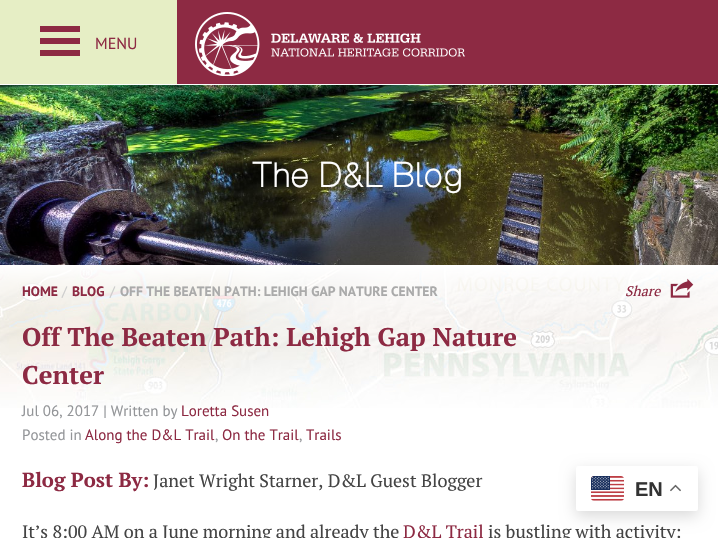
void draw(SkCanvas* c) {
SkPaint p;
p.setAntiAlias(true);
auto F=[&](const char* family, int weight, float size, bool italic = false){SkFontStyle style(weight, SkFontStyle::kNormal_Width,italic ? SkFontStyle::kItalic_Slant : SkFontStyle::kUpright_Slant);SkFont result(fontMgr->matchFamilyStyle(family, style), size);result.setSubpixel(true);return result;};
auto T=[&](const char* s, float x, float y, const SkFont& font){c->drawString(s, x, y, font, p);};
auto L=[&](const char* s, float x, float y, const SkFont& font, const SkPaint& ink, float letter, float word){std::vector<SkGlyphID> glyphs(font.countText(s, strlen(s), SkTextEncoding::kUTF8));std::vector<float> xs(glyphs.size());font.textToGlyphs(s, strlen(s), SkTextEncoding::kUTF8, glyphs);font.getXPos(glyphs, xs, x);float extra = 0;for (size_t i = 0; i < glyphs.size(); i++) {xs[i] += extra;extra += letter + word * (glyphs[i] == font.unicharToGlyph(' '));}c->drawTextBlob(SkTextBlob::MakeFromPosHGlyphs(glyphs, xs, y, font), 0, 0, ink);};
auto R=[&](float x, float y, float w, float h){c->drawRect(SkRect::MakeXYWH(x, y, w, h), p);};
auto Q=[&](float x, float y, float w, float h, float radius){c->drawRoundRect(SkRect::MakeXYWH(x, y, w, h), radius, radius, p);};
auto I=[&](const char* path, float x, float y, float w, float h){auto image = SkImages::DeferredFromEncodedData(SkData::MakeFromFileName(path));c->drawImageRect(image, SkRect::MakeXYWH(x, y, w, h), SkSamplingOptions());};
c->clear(0xffffffff);
I("1.png",0,265,718,143);
p.setColor(0xff8d2a43);
R(177,0,541,84);
p.setColor(0xffe6eec5);
R(0,0,177,84);
p.setColor(0xff8d2a43);
R(40,26,40,6);
R(40,38,40,6);
R(40,50,40,6);
auto f1 = F("PT Sans",400,16);
T("MENU",95,49,f1);
I("2.png",195,12,270,64);
I("3.png",0,85,718,180);
auto f2 = F("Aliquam",400,35);
p.setColor(0xffffffff);
L("The D&L Blog",253,187,f2,p,2,0);
auto f3 = F("PT Serif",400,14,true);
p.setColor(0xff8d2a43);
T("Share",625,296,f3);
I("4.png",670,278,24,20);
auto f4 = F("PT Serif",700,25.6);
T("Off The Beaten Path: Lehigh Gap Nature",22,346,f4);
T("Center",22,384,f4);
auto f5 = F("PT Sans",400,15);
p.setColor(0xff939598);
T("Jul 06, 2017 | Written by",22,416,f5);
p.setColor(0xff8d2a43);
T("Loretta Susen",181,416,f5);
p.setColor(0xff939598);
T("Posted in",22,440,f5);
p.setColor(0xff8d2a43);
T("Along the D&L Trail",85,440,f5);
p.setColor(0xff939598);
T(",",215,440,f5);
p.setColor(0xff8d2a43);
T("On the Trail",222,440,f5);
p.setColor(0xff939598);
T(",",299,440,f5);
p.setColor(0xff8d2a43);
T("Trails",306,440,f5);
auto f6 = F("PT Serif",700,20.25);
T("Blog Post By:",22,487,f6);
auto f7 = F("PT Serif",400,18);
p.setColor(0xff444444);
T("Janet Wright Starner, D&L Guest Blogger",153,487,f7);
T("It’s 8:00 AM on a June morning and already the",22,538,f7);
p.setColor(0xff8d2a43);
T("D&L Trail",403,538,f7);
p.setColor(0xff444444);
T("is bustling with activity:",488,538,f7);
auto f8 = F("PT Sans",700,13.6);
p.setColor(0xff8d2a43);
T("HOME",22,296,f8);
auto f9 = F("PT Sans",400,13.6);
p.setColor(0xffcccccc);
T("/",62,296,f9);
p.setColor(0xff8d2a43);
T("BLOG",72,296,f8);
p.setColor(0xffcccccc);
T("/",110,296,f9);
p.setColor(0xffaaaaaa);
T("OFF THE BEATEN PATH: LEHIGH GAP NATURE CENTER",120,296,f8);
p.setColor(0x26000000);
p.setMaskFilter(SkMaskFilter::MakeBlur(kNormal_SkBlurStyle, 7.5));
c->drawRoundRect(SkRect::MakeXYWH(576,471,122,45),2,2,p);
p.setMaskFilter(nullptr);
p.setColor(0xffffffff);
Q(576,466,122,45,2);
I("5.png",591,476,33,25);
auto f10 = F("Liberation Sans",700,20);
p.setColor(0xff333333);
T("EN",635,496,f10);
I("6.png",670,484,11,8);
}
